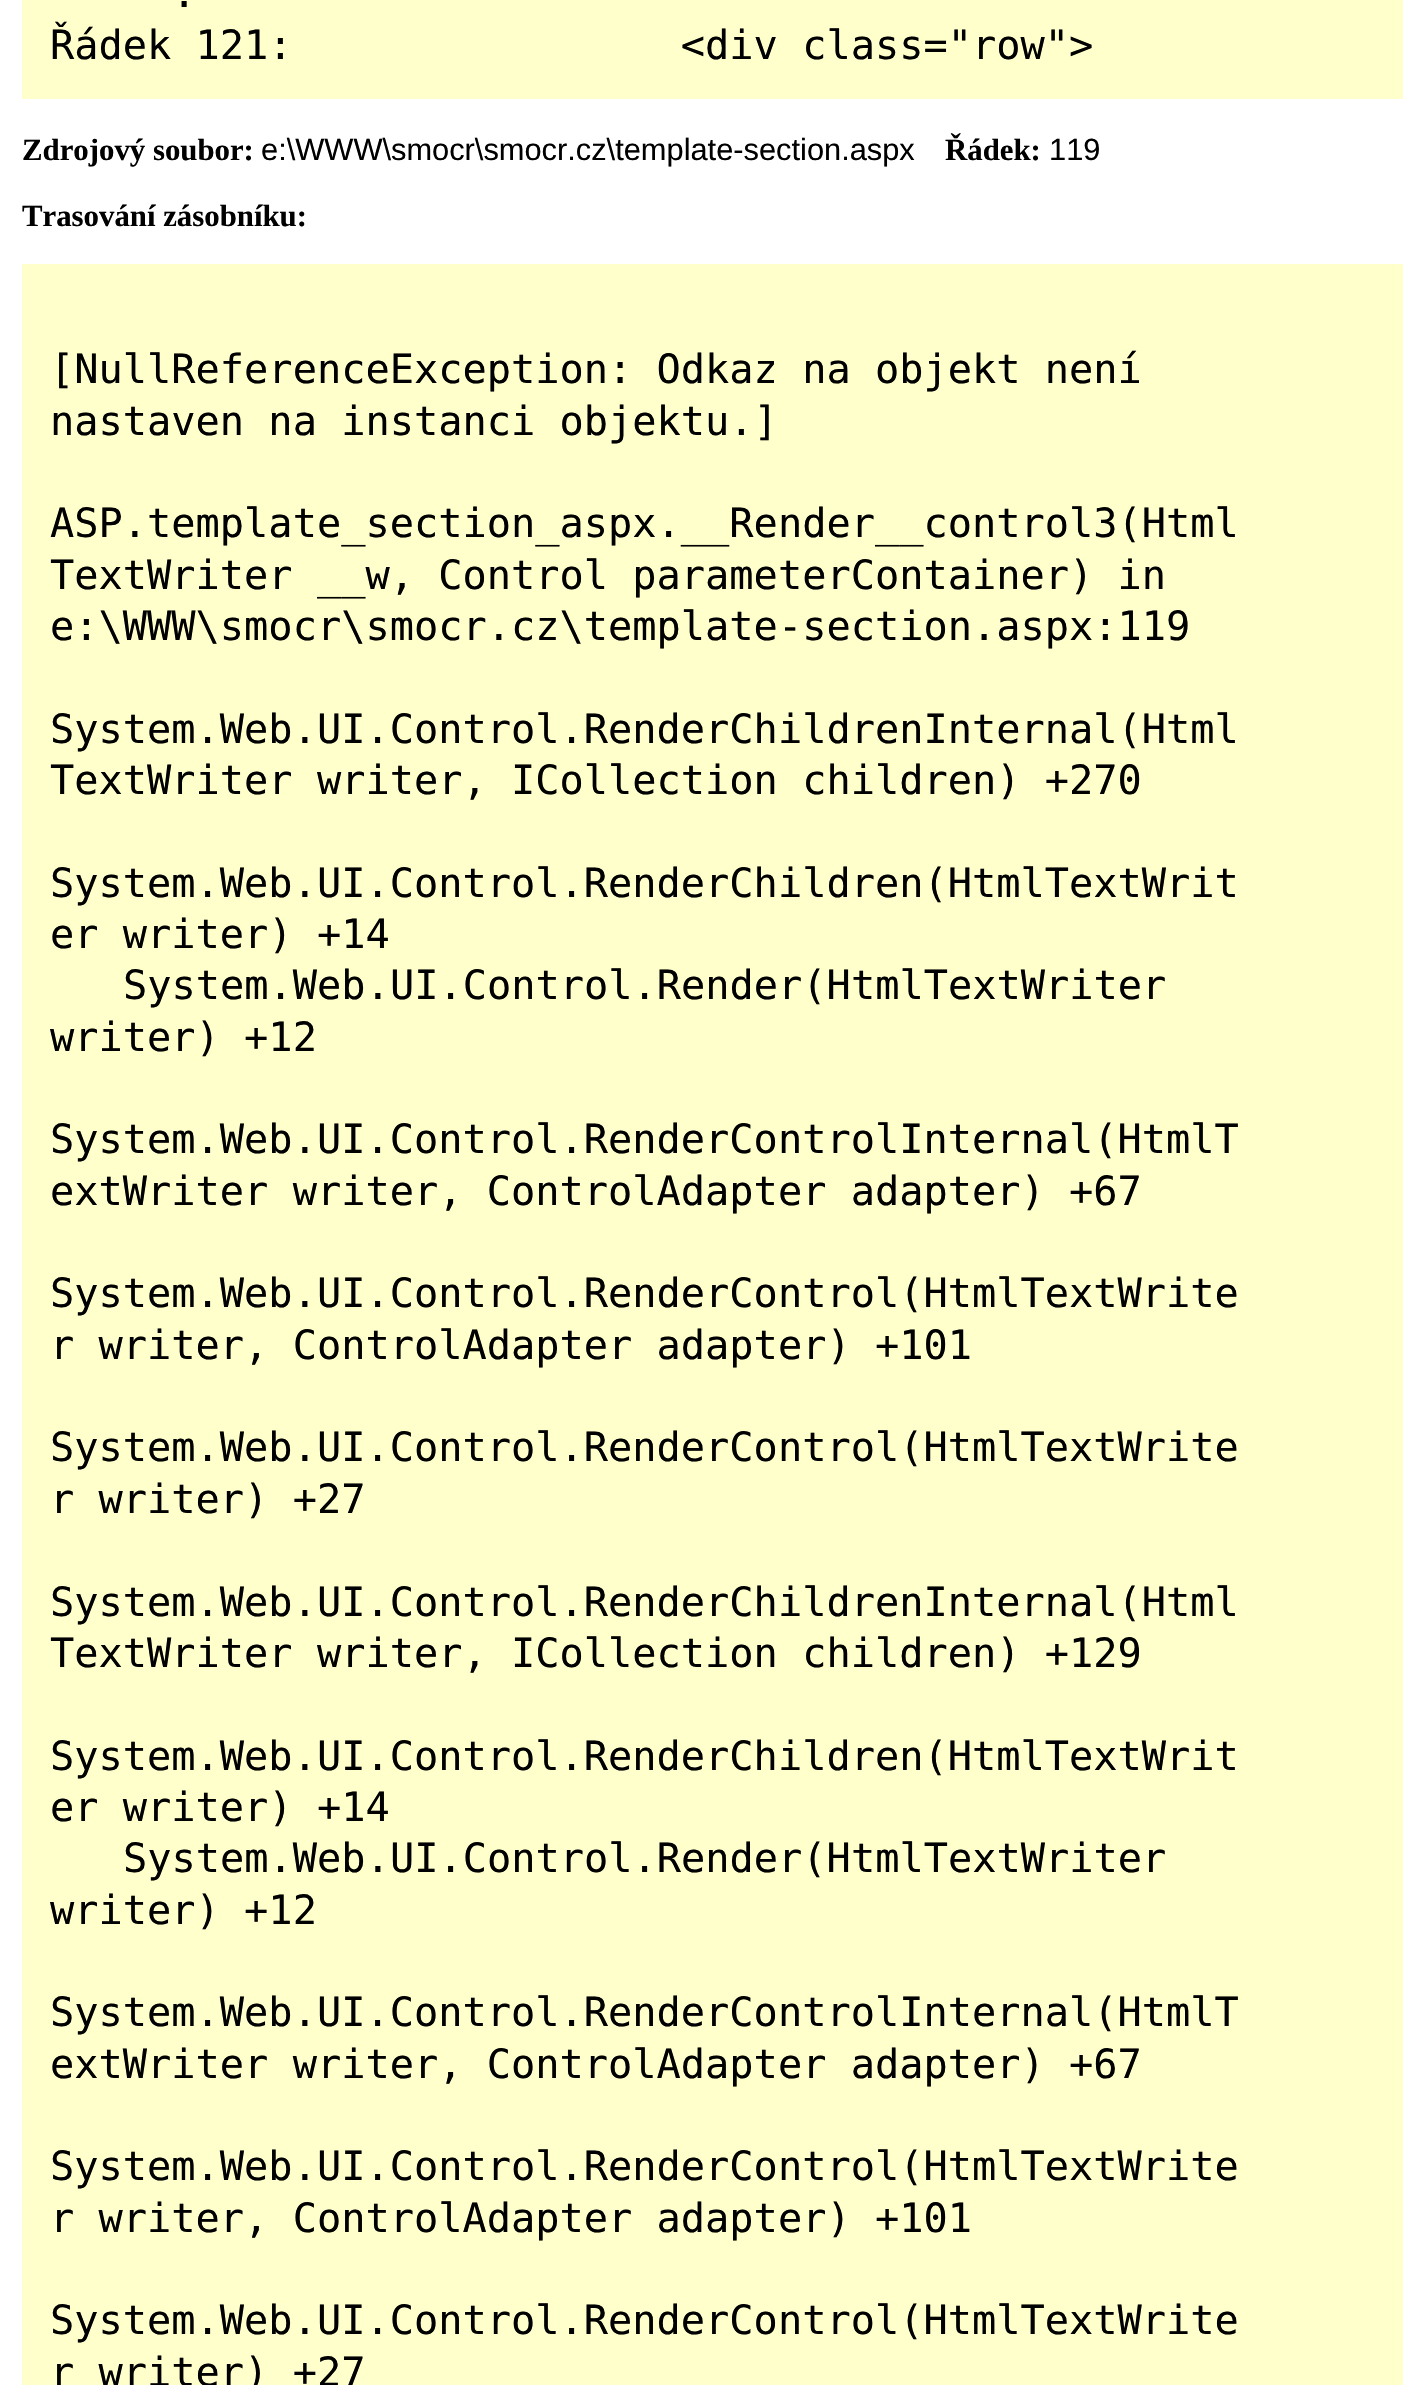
void draw(SkCanvas* c) {
SkPaint p;
p.setAntiAlias(true);
auto F=[&](const char* family, int weight, float size, bool italic = false){SkFontStyle style(weight, SkFontStyle::kNormal_Width,italic ? SkFontStyle::kItalic_Slant : SkFontStyle::kUpright_Slant);SkFont result(fontMgr->matchFamilyStyle(family, style), size);result.setSubpixel(true);return result;};
auto T=[&](const char* s, float x, float y, const SkFont& font){c->drawString(s, x, y, font, p);};
auto R=[&](float x, float y, float w, float h){c->drawRect(SkRect::MakeXYWH(x, y, w, h), p);};
c->clear(0xffffffff);
p.setColor(0xffffffcc);
R(22,0,1381,99);
auto f1 = F("DejaVu Sans Mono",400,40.3);
p.setColor(0xff000000);
T(".",172,7,f1);
T("Řádek 121:                <div class=\"row\">",50,59,f1);
auto f2 = F("Liberation Serif",700,30.8);
T("Zdrojový soubor:",22,160,f2);
auto f3 = F("Liberation Sans",400,30.8);
T("e:\\WWW\\smocr\\smocr.cz\\template-section.aspx",261,160,f3);
T("Řádek:",945,160,f2);
T("119",1049,160,f3);
T("Trasování zásobníku:",22,226,f2);
p.setColor(0xffffffcc);
R(22,264,1381,2121);
p.setColor(0xff000000);
T("[NullReferenceException: Odkaz na objekt není",50,383,f1);
T("nastaven na instanci objektu.]",50,435,f1);
T("ASP.template_section_aspx.__Render__control3(Html",50,537,f1);
T("TextWriter __w, Control parameterContainer) in",50,589,f1);
T("e:\\WWW\\smocr\\smocr.cz\\template-section.aspx:119",50,640,f1);
T("System.Web.UI.Control.RenderChildrenInternal(Html",50,743,f1);
T("TextWriter writer, ICollection children) +270",50,794,f1);
T("System.Web.UI.Control.RenderChildren(HtmlTextWrit",50,897,f1);
T("er writer) +14",50,948,f1);
T("System.Web.UI.Control.Render(HtmlTextWriter",123,999,f1);
T("writer) +12",50,1051,f1);
T("System.Web.UI.Control.RenderControlInternal(HtmlT",50,1153,f1);
T("extWriter writer, ControlAdapter adapter) +67",50,1205,f1);
T("System.Web.UI.Control.RenderControl(HtmlTextWrite",50,1307,f1);
T("r writer, ControlAdapter adapter) +101",50,1359,f1);
T("System.Web.UI.Control.RenderControl(HtmlTextWrite",50,1461,f1);
T("r writer) +27",50,1513,f1);
T("System.Web.UI.Control.RenderChildrenInternal(Html",50,1616,f1);
T("TextWriter writer, ICollection children) +129",50,1667,f1);
T("System.Web.UI.Control.RenderChildren(HtmlTextWrit",50,1770,f1);
T("er writer) +14",50,1821,f1);
T("System.Web.UI.Control.Render(HtmlTextWriter",123,1872,f1);
T("writer) +12",50,1924,f1);
T("System.Web.UI.Control.RenderControlInternal(HtmlT",50,2026,f1);
T("extWriter writer, ControlAdapter adapter) +67",50,2078,f1);
T("System.Web.UI.Control.RenderControl(HtmlTextWrite",50,2180,f1);
T("r writer, ControlAdapter adapter) +101",50,2232,f1);
T("System.Web.UI.Control.RenderControl(HtmlTextWrite",50,2334,f1);
T("r writer) +27",50,2386,f1);
}
